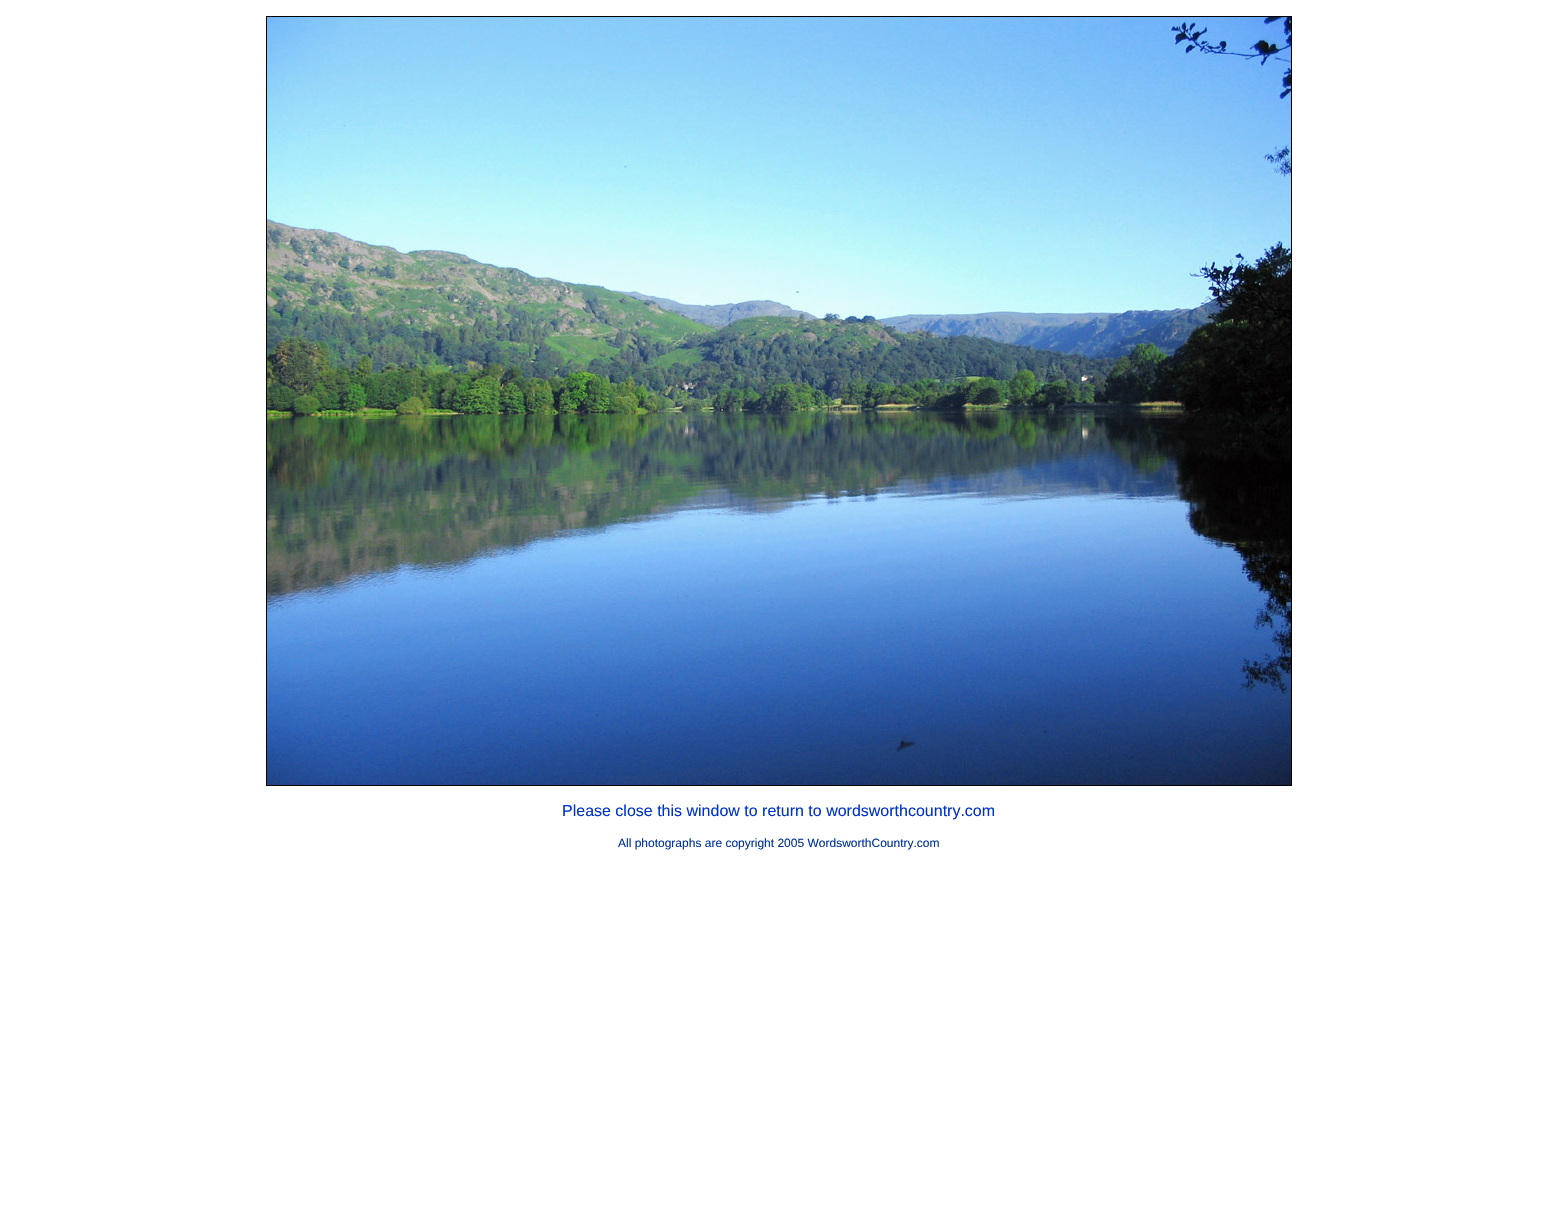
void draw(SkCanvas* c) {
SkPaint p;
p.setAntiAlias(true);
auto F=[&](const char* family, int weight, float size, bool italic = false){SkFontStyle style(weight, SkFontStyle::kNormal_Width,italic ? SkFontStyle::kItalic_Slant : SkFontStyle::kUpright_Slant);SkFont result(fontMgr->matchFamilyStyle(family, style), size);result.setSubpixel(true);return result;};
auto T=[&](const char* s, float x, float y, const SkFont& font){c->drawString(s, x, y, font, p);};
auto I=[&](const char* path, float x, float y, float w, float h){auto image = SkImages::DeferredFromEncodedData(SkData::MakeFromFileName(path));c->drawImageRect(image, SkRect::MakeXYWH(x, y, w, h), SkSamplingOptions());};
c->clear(0xffffffff);
p.setStroke(true);
p.setStrokeWidth(1);
p.setColor(0xff000000);
c->drawRect(SkRect::MakeXYWH(266.5,16.5,1025,769),p);
I("1.png",267,17,1024,768);
auto f1 = F("Liberation Sans",400,16);
p.setStroke(false);
p.setColor(0xff0033cc);
T("Please close this window to return to wordsworthcountry.com",562,816,f1);
auto f2 = F("Liberation Sans",400,12);
p.setColor(0xff003399);
T("All photographs are copyright 2005 WordsworthCountry.com",618,847,f2);
}
